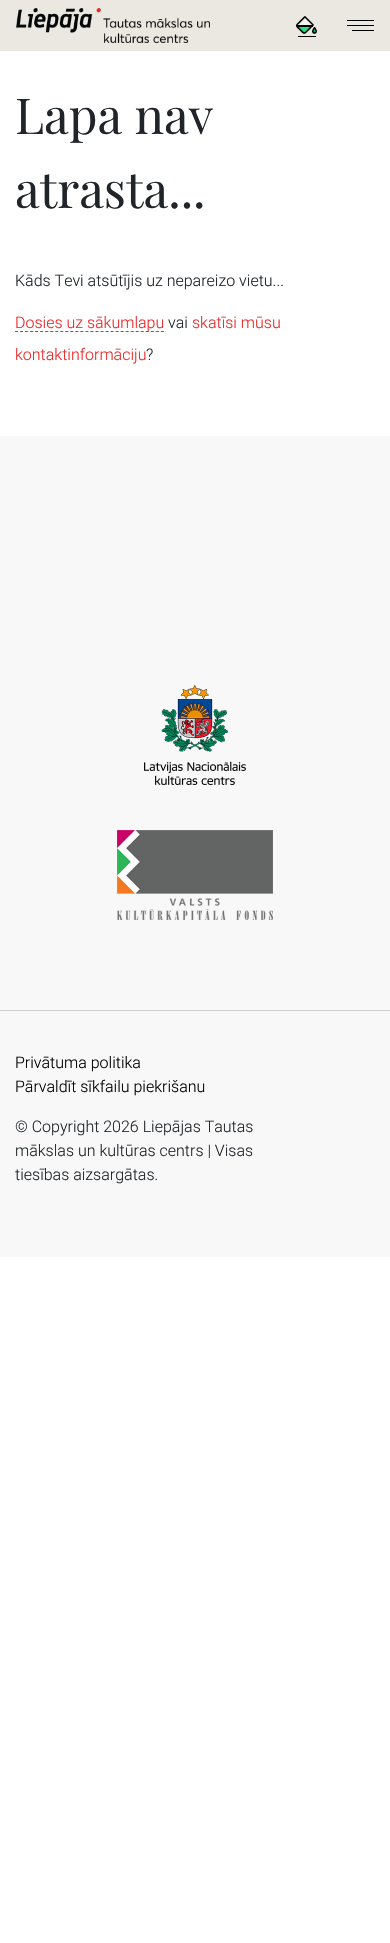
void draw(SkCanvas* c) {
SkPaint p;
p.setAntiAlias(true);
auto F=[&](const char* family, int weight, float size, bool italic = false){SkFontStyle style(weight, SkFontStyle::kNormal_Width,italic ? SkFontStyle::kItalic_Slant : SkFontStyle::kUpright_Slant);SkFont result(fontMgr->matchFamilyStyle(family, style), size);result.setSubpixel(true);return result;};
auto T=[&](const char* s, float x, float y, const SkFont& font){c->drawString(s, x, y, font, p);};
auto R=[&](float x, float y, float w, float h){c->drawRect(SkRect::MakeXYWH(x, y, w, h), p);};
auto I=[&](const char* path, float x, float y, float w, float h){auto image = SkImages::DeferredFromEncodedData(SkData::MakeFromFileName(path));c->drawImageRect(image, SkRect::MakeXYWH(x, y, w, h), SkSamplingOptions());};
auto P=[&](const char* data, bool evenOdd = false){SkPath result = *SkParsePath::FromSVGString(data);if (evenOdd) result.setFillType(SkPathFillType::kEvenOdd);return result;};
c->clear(0xffffffff);
p.setColor(0xffebe8e2);
R(0,0,390,51);
I("1.png",16,8,194,35);
I("2.png",296,16,21,21);
p.setColor(0xff000000);
R(347,20,27,1);
R(347,25,27,1);
R(352,30,22,1);
auto f1 = F("Playfair Display",400,49.5);
p.setColor(0xff212529);
T("Lapa nav",15,134,f1);
T("atrasta...",15,208,f1);
auto f2 = F("Roboto",300,16);
T("Kāds Tevi atsūtījis uz nepareizo vietu...",15,286,f2);
p.setStroke(true);
p.setStrokeWidth(1);
p.setColor(0xffed2626);
p.setPathEffect(SkDashPathEffect::Make({{3,2.03f}}, 0));
c->drawPath(P("M15 331.5h149"),p);
p.setPathEffect(nullptr);
p.setStroke(false);
T("Dosies uz sākumlapu",15,328,f2);
p.setColor(0xff212529);
T("vai",168,328,f2);
p.setColor(0xffed2626);
T("skatīsi mūsu",192,328,f2);
T("kontaktinformāciju",15,360,f2);
p.setColor(0xff212529);
T("?",146,360,f2);
p.setColor(0xfff8f8f8);
R(0,436,390,821);
I("3.png",144,685,102,100);
I("4.png",117,830,156,90);
p.setColor(0xffcfcfcf);
R(0,1010,390,1);
p.setColor(0xff000000);
T("Privātuma politika",15,1068,f2);
T("Pārvaldīt sīkfailu piekrišanu",15,1092,f2);
p.setColor(0xff212529);
T("© Copyright 2026 Liepājas Tautas",15,1132,f2);
T("mākslas un kultūras centrs | Visas",15,1156,f2);
T("tiesības aizsargātas.",15,1180,f2);
}
